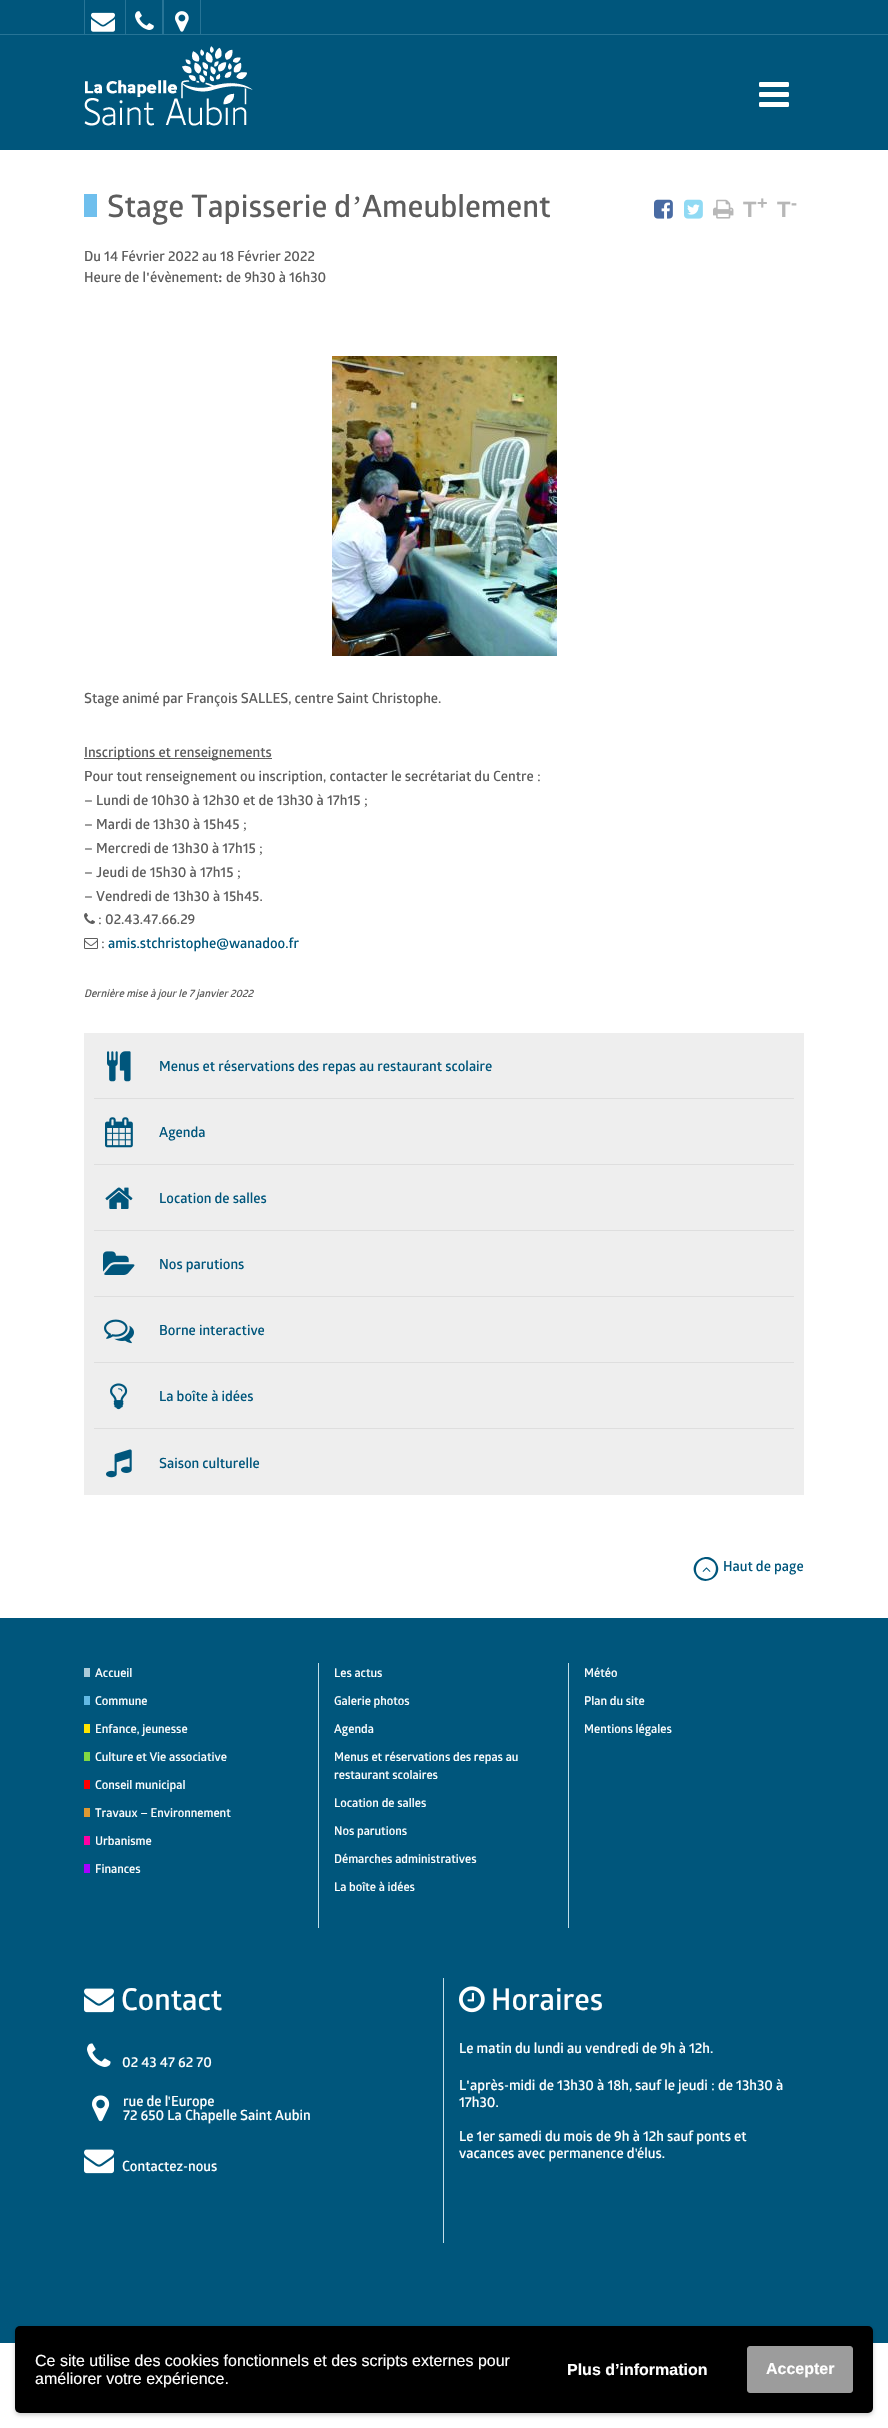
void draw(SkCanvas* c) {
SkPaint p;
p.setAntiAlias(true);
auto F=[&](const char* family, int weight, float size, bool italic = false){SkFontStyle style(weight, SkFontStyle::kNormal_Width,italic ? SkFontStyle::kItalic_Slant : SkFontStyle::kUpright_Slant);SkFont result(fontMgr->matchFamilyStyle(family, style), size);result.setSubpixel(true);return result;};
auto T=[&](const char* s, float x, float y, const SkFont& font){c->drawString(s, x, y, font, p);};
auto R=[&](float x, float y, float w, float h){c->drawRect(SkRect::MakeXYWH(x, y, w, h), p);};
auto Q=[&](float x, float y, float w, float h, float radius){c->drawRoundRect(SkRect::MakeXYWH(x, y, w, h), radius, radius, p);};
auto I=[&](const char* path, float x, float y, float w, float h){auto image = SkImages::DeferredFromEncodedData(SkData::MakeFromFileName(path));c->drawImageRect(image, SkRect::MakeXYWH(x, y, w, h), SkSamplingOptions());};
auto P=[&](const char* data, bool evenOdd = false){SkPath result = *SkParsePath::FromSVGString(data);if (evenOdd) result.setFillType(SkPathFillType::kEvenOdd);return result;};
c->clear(0xffffffff);
p.setColor(0xff00567c);
R(0,0,888,34);
p.setColor(0xff277496);
R(0,34,888,1);
R(84,0,1,35);
I("1.png",91,12,24,20);
R(162,0,2,35);
R(125,0,1,35);
I("2.png",135,11,19,19);
R(200,0,1,35);
I("3.png",175,11,14,21);
p.setColor(0xff00567c);
R(0,35,888,115);
I("4.png",84,46,169,80);
I("5.png",759,82,30,25);
p.setColor(0xff6fbfed);
R(84,194,13,23);
auto f1 = F("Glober",600,30.75);
p.setColor(0xff5d5d5d);
T("Stage Tapisserie d",107,217,f1);
auto f2 = F("Liberation Serif",400,30.75);
T("’",352,217,f2);
T("Ameublement",362,217,f1);
I("6.png",654,199,19,20);
I("7.png",684,199,19,20);
I("8.png",713,199,21,20);
auto f3 = F("Liberation Sans",700,22);
p.setColor(0xffb7b7b7);
T("T",743,217,f3);
auto f4 = F("Liberation Sans",700,18);
T("+",757,209,f4);
T("T",777,217,f3);
T("-",791,209,f4);
auto f5 = F("Glober",700,14);
p.setColor(0xff5d5d5d);
T("Du 14 Février 2022 au 18 Février 2022",84,261,f5);
T("Heure de l",84,282,f5);
auto f6 = F("Liberation Serif",700,14);
T("'",146,282,f6);
T("évènement",150,282,f5);
T("de 9h30 à 16h30",226,282,f5);
T(":",218,282,f6);
I("9.png",332,356,225,300);
auto f7 = F("Glober",600,14);
T("Stage animé par François SALLES, centre Saint Christophe.",84,703,f7);
R(84,758,188,1);
T("Inscriptions et renseignements",84,757,f7);
T("Pour tout renseignement ou inscription, contacter le secrétariat du Centre",84,781,f7);
auto f8 = F("Liberation Serif",400,14);
T(":",537,781,f8);
T("– Lundi de 10h30 à 12h30 et de 13h30 à 17h15",84,805,f7);
T(";",364,805,f8);
T("– Mardi de 13h30 à 15h45",84,829,f7);
T(";",243,829,f8);
T("– Mercredi de 13h30 à 17h15",84,853,f7);
T(";",259,853,f8);
T("– Jeudi de 15h30 à 17h15",84,877,f7);
T(";",237,877,f8);
T("– Vendredi de 13h30 à 15h45.",84,901,f7);
I("10.png",84,913,11,11);
T(":",98,924,f8);
T("02.43.47.66.29",105,924,f7);
I("11.png",84,938,14,11);
T(":",101,948,f8);
p.setColor(0xff00567c);
T("amis.stchristophe@wanadoo.fr",108,948,f7);
auto f9 = F("Glober",600,10.5,true);
p.setColor(0xff5d5d5d);
T("Dernière mise à jour le 7 janvier 2022",84,997,f9);
p.setColor(0xffeeeeee);
R(84,1033,720,462);
p.setColor(0xffdedede);
R(94,1098,700,1);
I("12.png",107,1051,24,31);
p.setColor(0xff00567c);
T("Menus et réservations des repas au restaurant scolaire",159,1071,f7);
p.setColor(0xffdedede);
R(94,1164,700,1);
I("13.png",105,1117,28,31);
p.setColor(0xff00567c);
T("Agenda",159,1137,f7);
p.setColor(0xffdedede);
R(94,1230,700,1);
I("14.png",105,1187,28,22);
p.setColor(0xff00567c);
T("Location de salles",159,1203,f7);
p.setColor(0xffdedede);
R(94,1296,700,1);
I("15.png",103,1251,32,24);
p.setColor(0xff00567c);
T("Nos parutions",159,1269,f7);
p.setColor(0xffdedede);
R(94,1362,700,1);
I("16.png",104,1319,30,25);
p.setColor(0xff00567c);
T("Borne interactive",159,1335,f7);
p.setColor(0xffdedede);
R(94,1428,700,1);
I("17.png",110,1383,18,27);
p.setColor(0xff00567c);
T("La boîte à idées",159,1401,f7);
I("18.png",106,1449,26,29);
T("Saison culturelle",159,1468,f7);
c->drawPath(P("M710 1560c-12-5.5-20 13-8 18c12 5.5 20-13 8-18zm6.5 3c8 13.5-13 25.5-21 12c-8-13.5 13-25.5 21-12z"),p);
I("19.png",702,1567,9,5);
T("Haut de page",723,1571,f7);
R(0,1618,888,725);
p.setColor(0xffc1deea);
R(318,1663,1,265);
p.setColor(0xffaacbd9);
R(84,1668,6,9);
auto f10 = F("Glober",600,12);
p.setColor(0xffffffff);
T("Accueil",95,1677,f10);
p.setColor(0xff62b9e4);
R(84,1696,6,9);
p.setColor(0xffffffff);
T("Commune",95,1705,f10);
p.setColor(0xffffe400);
R(84,1724,6,9);
p.setColor(0xffffffff);
T("Enfance, jeunesse",95,1733,f10);
p.setColor(0xff81d742);
R(84,1752,6,9);
p.setColor(0xffffffff);
T("Culture et Vie associative",95,1761,f10);
p.setColor(0xffff0000);
R(84,1780,6,9);
p.setColor(0xffffffff);
T("Conseil municipal",95,1789,f10);
p.setColor(0xffdd9933);
R(84,1808,6,9);
p.setColor(0xffffffff);
T("Travaux – Environnement",95,1817,f10);
p.setColor(0xffff00a2);
R(84,1836,6,9);
p.setColor(0xffffffff);
T("Urbanisme",95,1845,f10);
p.setColor(0xffa800ff);
R(84,1864,6,9);
p.setColor(0xffffffff);
T("Finances",95,1873,f10);
p.setColor(0xffc1deea);
R(568,1663,1,265);
p.setColor(0xffffffff);
T("Les actus",334,1677,f10);
T("Galerie photos",334,1705,f10);
T("Agenda",334,1733,f10);
T("Menus et réservations des repas au",334,1761,f10);
T("restaurant scolaires",334,1779,f10);
T("Location de salles",334,1807,f10);
T("Nos parutions",334,1835,f10);
T("Démarches administratives",334,1863,f10);
T("La boîte à idées",334,1891,f10);
T("Météo",584,1677,f10);
T("Plan du site",584,1705,f10);
T("Mentions légales",584,1733,f10);
p.setColor(0xffc1deea);
R(443,1978,1,265);
I("20.png",84,1988,30,25);
auto f11 = F("Glober",600,30);
p.setColor(0xffffffff);
T("Contact",121,2010,f11);
I("21.png",87,2043,24,24);
T("02 43 47 62 70",122,2067,f7);
I("22.png",92,2095,18,27);
T("rue de l",123,2106,f7);
T("'",168,2106,f8);
T("Europe",171,2106,f7);
T("72 650 La Chapelle Saint Aubin",123,2120,f7);
I("20.png",84,2149,30,25);
T("Contactez-nous",122,2171,f7);
I("23.png",459,1986,26,27);
T("Horaires",491,2010,f11);
T("Le matin du lundi au vendredi",459,2053,f5);
T("de 9h à 12h.",642,2053,f7);
T("L",459,2090,f5);
T("'",466,2090,f6);
T("après-midi",470,2090,f5);
T("de 13h30 à 18h,",539,2090,f7);
T("sauf le jeudi",635,2090,f5);
T("de 13h30 à",718,2090,f7);
T(":",711,2090,f8);
T("17h30.",459,2107,f7);
T("Le 1er samedi du mois",459,2141,f5);
T("de 9h à 12h sauf ponts et",596,2141,f7);
T("vacances avec permanence d",459,2158,f7);
T("'",635,2158,f8);
T("élus.",637,2158,f7);
p.setColor(0x33000000);
p.setMaskFilter(SkMaskFilter::MakeBlur(kNormal_SkBlurStyle, 2));
c->drawRoundRect(SkRect::MakeXYWH(15,2328,858,87),5,5,p);
p.setMaskFilter(nullptr);
p.setColor(0xff000000);
Q(15,2326,858,87,5);
auto f12 = F("Liberation Sans",400,16);
p.setColor(0xffffffff);
T("Ce site utilise des cookies fonctionnels et des scripts externes pour",35,2366,f12);
T("améliorer votre expérience.",35,2384,f12);
auto f13 = F("Liberation Sans",700,16);
T("Plus d’information",567,2375,f13);
p.setColor(0xff9c9c9c);
c->drawRoundRect(SkRect::MakeXYWH(747.5,2346.5,105,46),2.5,2.5,p);
p.setStroke(true);
p.setStrokeWidth(1);
c->drawRoundRect(SkRect::MakeXYWH(747.5,2346.5,105,46),2.5,2.5,p);
p.setStroke(false);
p.setColor(0xffffffff);
T("Accepter",766,2374,f13);
}
